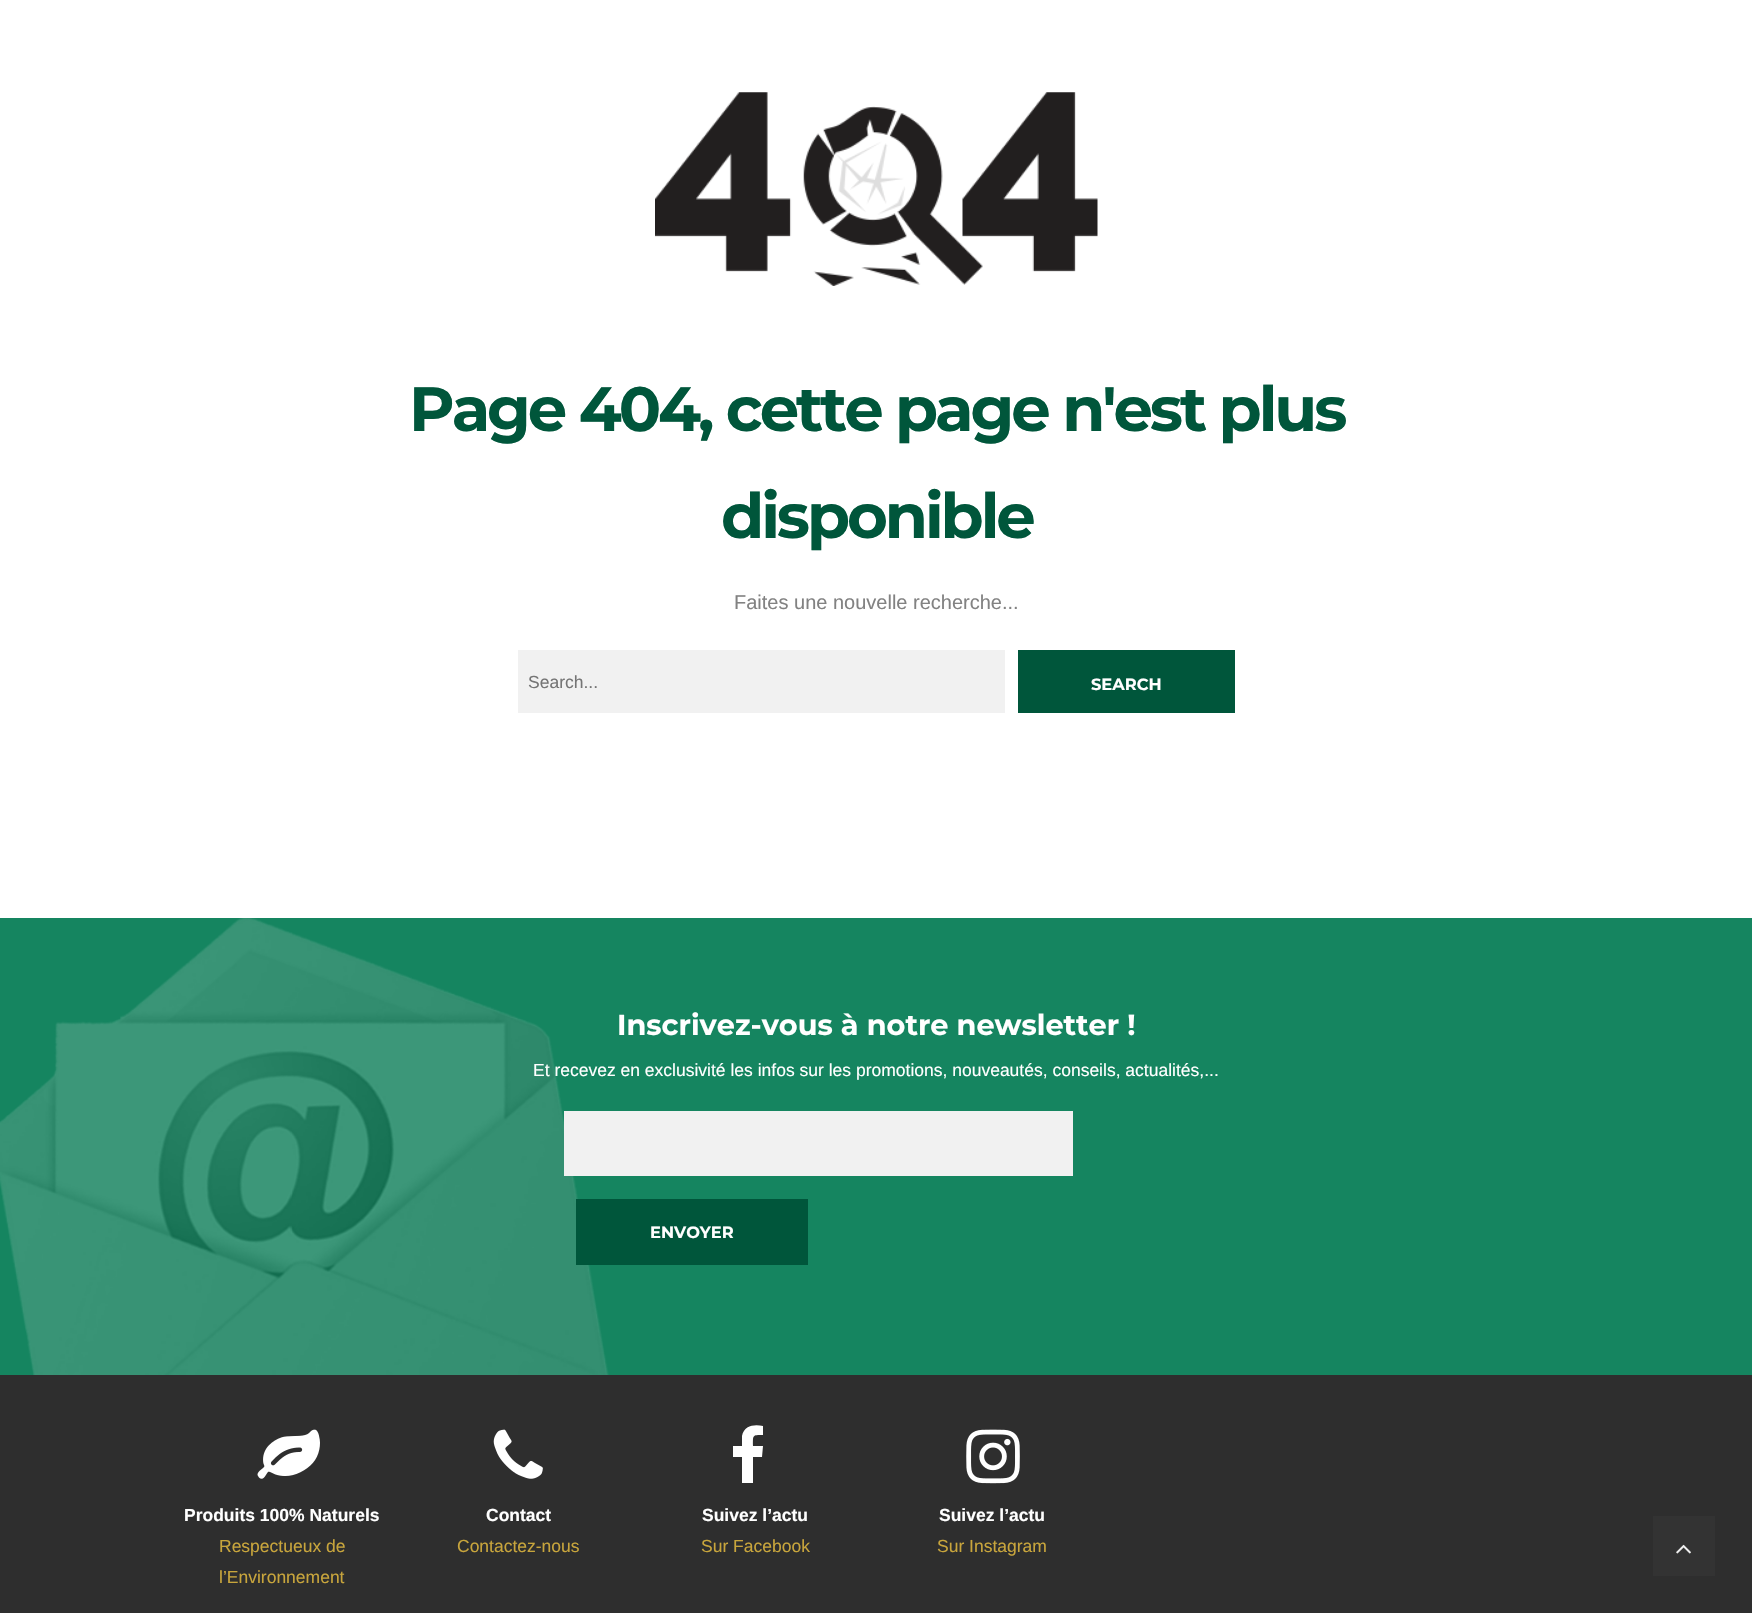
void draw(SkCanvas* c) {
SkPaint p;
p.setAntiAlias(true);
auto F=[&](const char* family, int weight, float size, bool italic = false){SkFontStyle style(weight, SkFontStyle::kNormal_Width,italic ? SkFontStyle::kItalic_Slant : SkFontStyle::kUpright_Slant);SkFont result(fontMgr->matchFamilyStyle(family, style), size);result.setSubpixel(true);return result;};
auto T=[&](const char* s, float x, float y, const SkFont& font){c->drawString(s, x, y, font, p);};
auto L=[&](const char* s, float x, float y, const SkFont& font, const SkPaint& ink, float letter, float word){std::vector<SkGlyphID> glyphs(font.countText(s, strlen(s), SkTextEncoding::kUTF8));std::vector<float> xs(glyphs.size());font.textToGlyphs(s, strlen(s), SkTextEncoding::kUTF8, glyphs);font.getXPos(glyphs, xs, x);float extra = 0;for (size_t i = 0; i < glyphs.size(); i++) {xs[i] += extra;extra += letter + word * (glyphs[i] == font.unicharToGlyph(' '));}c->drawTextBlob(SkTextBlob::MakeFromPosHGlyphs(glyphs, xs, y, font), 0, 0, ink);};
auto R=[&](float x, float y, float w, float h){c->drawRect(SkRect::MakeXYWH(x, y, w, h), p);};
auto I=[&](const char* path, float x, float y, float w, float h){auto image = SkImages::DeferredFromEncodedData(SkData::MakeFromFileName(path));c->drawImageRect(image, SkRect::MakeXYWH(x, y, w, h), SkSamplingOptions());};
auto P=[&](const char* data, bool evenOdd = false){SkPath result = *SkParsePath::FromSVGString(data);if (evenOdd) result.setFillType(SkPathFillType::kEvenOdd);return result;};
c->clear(0xffffffff);
I("1.png",655,92,443,194);
auto f1 = F("Montserrat",700,62.5);
p.setColor(0xff00563b);
L("Page 404, cette page n'est plus",409,431,f1,p,-3.1,0);
L("disponible",721,538,f1,p,-3.1,0);
auto f2 = F("Arimo",400,20);
p.setColor(0xff828282);
T("Faites une nouvelle recherche...",734,609,f2);
p.setColor(0xfff1f1f1);
R(518,650,487,63);
auto f3 = F("Arimo",400,17.5);
p.setColor(0xff757575);
T("Search...",528,688,f3);
p.setColor(0xff00563b);
R(1018,650,217,63);
auto f4 = F("Montserrat",700,16.25);
p.setColor(0xffffffff);
T("SEARCH",1091,690,f4);
p.setColor(0xff158560);
R(0,918,1752,457);
I("2.png",0,918,609,457);
auto f5 = F("Montserrat",700,28.75);
p.setColor(0xffffffff);
T("Inscrivez-vous à notre newsletter !",617,1035,f5);
T("Et recevez en exclusivité les infos sur les promotions, nouveautés, conseils, actualités,...",533,1076,f3);
p.setColor(0xfff1f1f1);
R(564,1111,509,65);
p.setColor(0xff00563b);
R(576,1199,232,66);
p.setColor(0xffffffff);
T("ENVOYER",650,1238,f4);
p.setColor(0xff2e2e2e);
R(0,1375,1752,238);
I("3.png",257,1429,63,50);
auto f6 = F("Arimo",700,17.5);
p.setColor(0xffffffff);
T("Produits 100% Naturels",184,1521,f6);
p.setColor(0xffc8a53c);
T("Respectueux de",219,1552,f3);
T("l’Environnement",219,1583,f3);
I("4.png",493,1429,50,50);
p.setColor(0xffffffff);
T("Contact",486,1521,f6);
p.setColor(0xffc8a53c);
T("Contactez-nous",457,1552,f3);
p.setColor(0xffffffff);
c->drawPath(P("M763 1426v9c-11 0-10 0-10 11h10l-1 11h-9v26h-11v-26h-9v-11h9v-10c2-11 13-12 21-10z"),p);
T("Suivez l’actu",702,1521,f6);
p.setColor(0xffc8a53c);
T("Sur Facebook",701,1552,f3);
I("5.png",966,1429,54,55);
p.setColor(0xffffffff);
T("Suivez l’actu",939,1521,f6);
p.setColor(0xffc8a53c);
T("Sur Instagram",937,1552,f3);
p.setColor(0xff333333);
R(1653,1516,62,60);
I("6.png",1676,1544,15,10);
}
